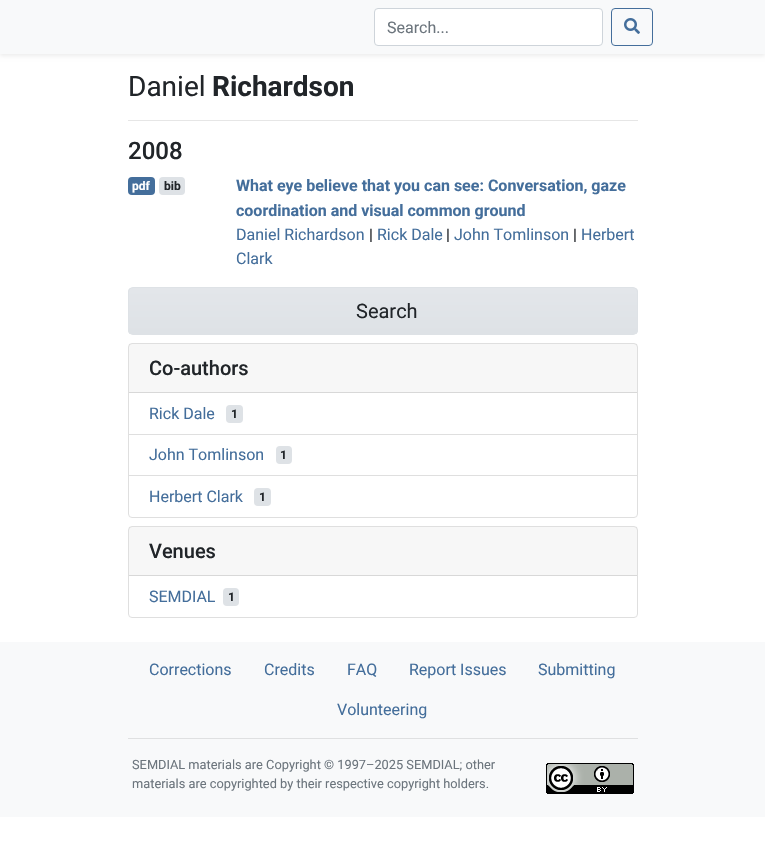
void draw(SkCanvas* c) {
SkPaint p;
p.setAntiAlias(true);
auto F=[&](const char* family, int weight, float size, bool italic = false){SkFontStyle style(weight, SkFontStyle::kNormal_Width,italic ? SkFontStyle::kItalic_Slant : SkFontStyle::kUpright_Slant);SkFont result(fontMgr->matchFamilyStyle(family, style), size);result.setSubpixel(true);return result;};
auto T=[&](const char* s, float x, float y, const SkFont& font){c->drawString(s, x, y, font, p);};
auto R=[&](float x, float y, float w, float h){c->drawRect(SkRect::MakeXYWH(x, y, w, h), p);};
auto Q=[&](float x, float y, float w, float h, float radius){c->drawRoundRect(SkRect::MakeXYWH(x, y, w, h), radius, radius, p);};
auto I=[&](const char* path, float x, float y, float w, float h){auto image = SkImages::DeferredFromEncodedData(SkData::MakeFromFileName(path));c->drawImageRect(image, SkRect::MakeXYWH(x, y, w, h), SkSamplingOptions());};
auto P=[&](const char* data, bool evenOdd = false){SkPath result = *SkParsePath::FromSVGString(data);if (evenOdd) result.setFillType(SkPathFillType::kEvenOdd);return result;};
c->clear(0xffffffff);
p.setColor(0x12000000);
p.setMaskFilter(SkMaskFilter::MakeBlur(kNormal_SkBlurStyle, 2));
c->drawRect(SkRect::MakeXYWH(0,2,765,54),p);
p.setMaskFilter(nullptr);
p.setColor(0xfff8f9fa);
R(0,0,765,54);
p.setColor(0xffffffff);
c->drawRoundRect(SkRect::MakeXYWH(374.5,8.5,228,37),3.5,3.5,p);
p.setStroke(true);
p.setStrokeWidth(1);
p.setColor(0xffced4da);
c->drawRoundRect(SkRect::MakeXYWH(374.5,8.5,228,37),3.5,3.5,p);
auto f1 = F("Roboto",400,16);
p.setStroke(false);
p.setColor(0xff6c757d);
T("Search...",387,33,f1);
p.setStroke(true);
p.setColor(0xff446e9b);
c->drawRoundRect(SkRect::MakeXYWH(611.5,8.5,41,37),3.5,3.5,p);
I("1.png",624,18,16,16);
auto f2 = F("Roboto",400,28);
p.setStroke(false);
p.setColor(0xff212529);
T("Daniel",128,96,f2);
auto f3 = F("Roboto",700,28);
T("Richardson",212,96,f3);
p.setColor(0xffe6e6e6);
R(128,120,510,1);
auto f4 = F("Roboto",500,24);
p.setColor(0xff212529);
T("2008",128,159,f4);
p.setColor(0xff446e9b);
Q(128,177,27,18,4);
auto f5 = F("Roboto",700,12);
p.setColor(0xffffffff);
T("pdf",132,190,f5);
p.setColor(0xffdee2e6);
Q(159,177,26,18,4);
p.setColor(0xff212529);
T("bib",164,190,f5);
auto f6 = F("Roboto",700,16);
p.setColor(0xff446e9b);
T("What eye believe that you can see: Conversation, gaze",236,191,f6);
T("coordination and visual common ground",236,216,f6);
T("Daniel Richardson",236,240,f1);
p.setColor(0xff212529);
T("|",369,240,f1);
p.setColor(0xff446e9b);
T("Rick Dale",377,240,f1);
p.setColor(0xff212529);
T("|",446,240,f1);
p.setColor(0xff446e9b);
T("John Tomlinson",454,240,f1);
p.setColor(0xff212529);
T("|",573,240,f1);
p.setColor(0xff446e9b);
T("Herbert",581,240,f1);
T("Clark",236,264,f1);
c->save();
c->clipPath(P("M133 287h500c3 0 5 2 5 5v38c0 3-2 5-5 5h-500c-3 0-5-2-5-5v-38c0-3 2-5 5-5z"),true);
{
const SkColor colors[] = {0xffe3e6ea,0xffdee2e6};
const float stops[] = {0,1};
const SkPoint ends[] = {{383,288}, {383,334}};
p.setShader(SkGradientShader::MakeLinear(ends, colors, stops, 2, SkTileMode::kClamp));
p.setAlpha(255);
}
R(128,288,510,46);
c->restore();
p.setStroke(true);
p.setShader(nullptr);
p.setColor(0xffdee2e6);
c->drawRoundRect(SkRect::MakeXYWH(128.5,287.5,509,47),4.5,4.5,p);
auto f7 = F("Roboto",400,20);
p.setStroke(false);
p.setColor(0xff212529);
T("Search",356,318,f7);
p.setStroke(true);
p.setColor(0xffdfdfdf);
c->drawRoundRect(SkRect::MakeXYWH(128.5,343.5,509,174),3.5,3.5,p);
p.setStroke(false);
p.setColor(0x08000000);
R(129,344,508,48);
p.setColor(0xffd8d8d8);
R(129,392,508,1);
auto f8 = F("Roboto",500,20);
p.setColor(0xff212529);
T("Co-authors",149,375,f8);
p.setColor(0xff446e9b);
T("Rick Dale",149,419,f1);
p.setColor(0xffdee2e6);
Q(226,405,17,18,4);
p.setColor(0xff212529);
T("1",231,418,f5);
p.setColor(0xffdfdfdf);
R(129,434,508,1);
p.setColor(0xff446e9b);
T("John Tomlinson",149,460,f1);
p.setColor(0xffdee2e6);
Q(276,446,16,18,4);
p.setColor(0xff212529);
T("1",280,459,f5);
p.setColor(0xffdfdfdf);
R(129,475,508,1);
p.setColor(0xff446e9b);
T("Herbert Clark",149,502,f1);
p.setColor(0xffdee2e6);
Q(254,488,17,18,4);
p.setColor(0xff212529);
T("1",259,501,f5);
p.setStroke(true);
p.setColor(0xffdfdfdf);
c->drawRoundRect(SkRect::MakeXYWH(128.5,526.5,509,91),3.5,3.5,p);
p.setStroke(false);
p.setColor(0x08000000);
R(129,527,508,48);
p.setColor(0xffd8d8d8);
R(129,575,508,1);
p.setColor(0xff212529);
T("Venues",149,558,f8);
p.setColor(0xff446e9b);
T("SEMDIAL",149,602,f1);
p.setColor(0xffdee2e6);
Q(223,588,16,18,4);
p.setColor(0xff212529);
T("1",228,601,f5);
p.setColor(0xfff8f9fa);
R(0,642,765,175);
p.setColor(0xff446e9b);
T("Corrections",149,675,f1);
T("Credits",264,675,f1);
T("FAQ",347,675,f1);
T("Report Issues",409,675,f1);
T("Submitting",538,675,f1);
T("Volunteering",337,715,f1);
p.setColor(0xffdfe0e1);
R(128,738,510,1);
auto f9 = F("Roboto",400,12.8);
p.setColor(0xff6c757d);
T("SEMDIAL materials are Copyright © 1997–2025 SEMDIAL; other",132,769,f9);
I("2.png",546,763,88,31);
T("materials are copyrighted by their respective copyright holders.",132,788,f9);
}
